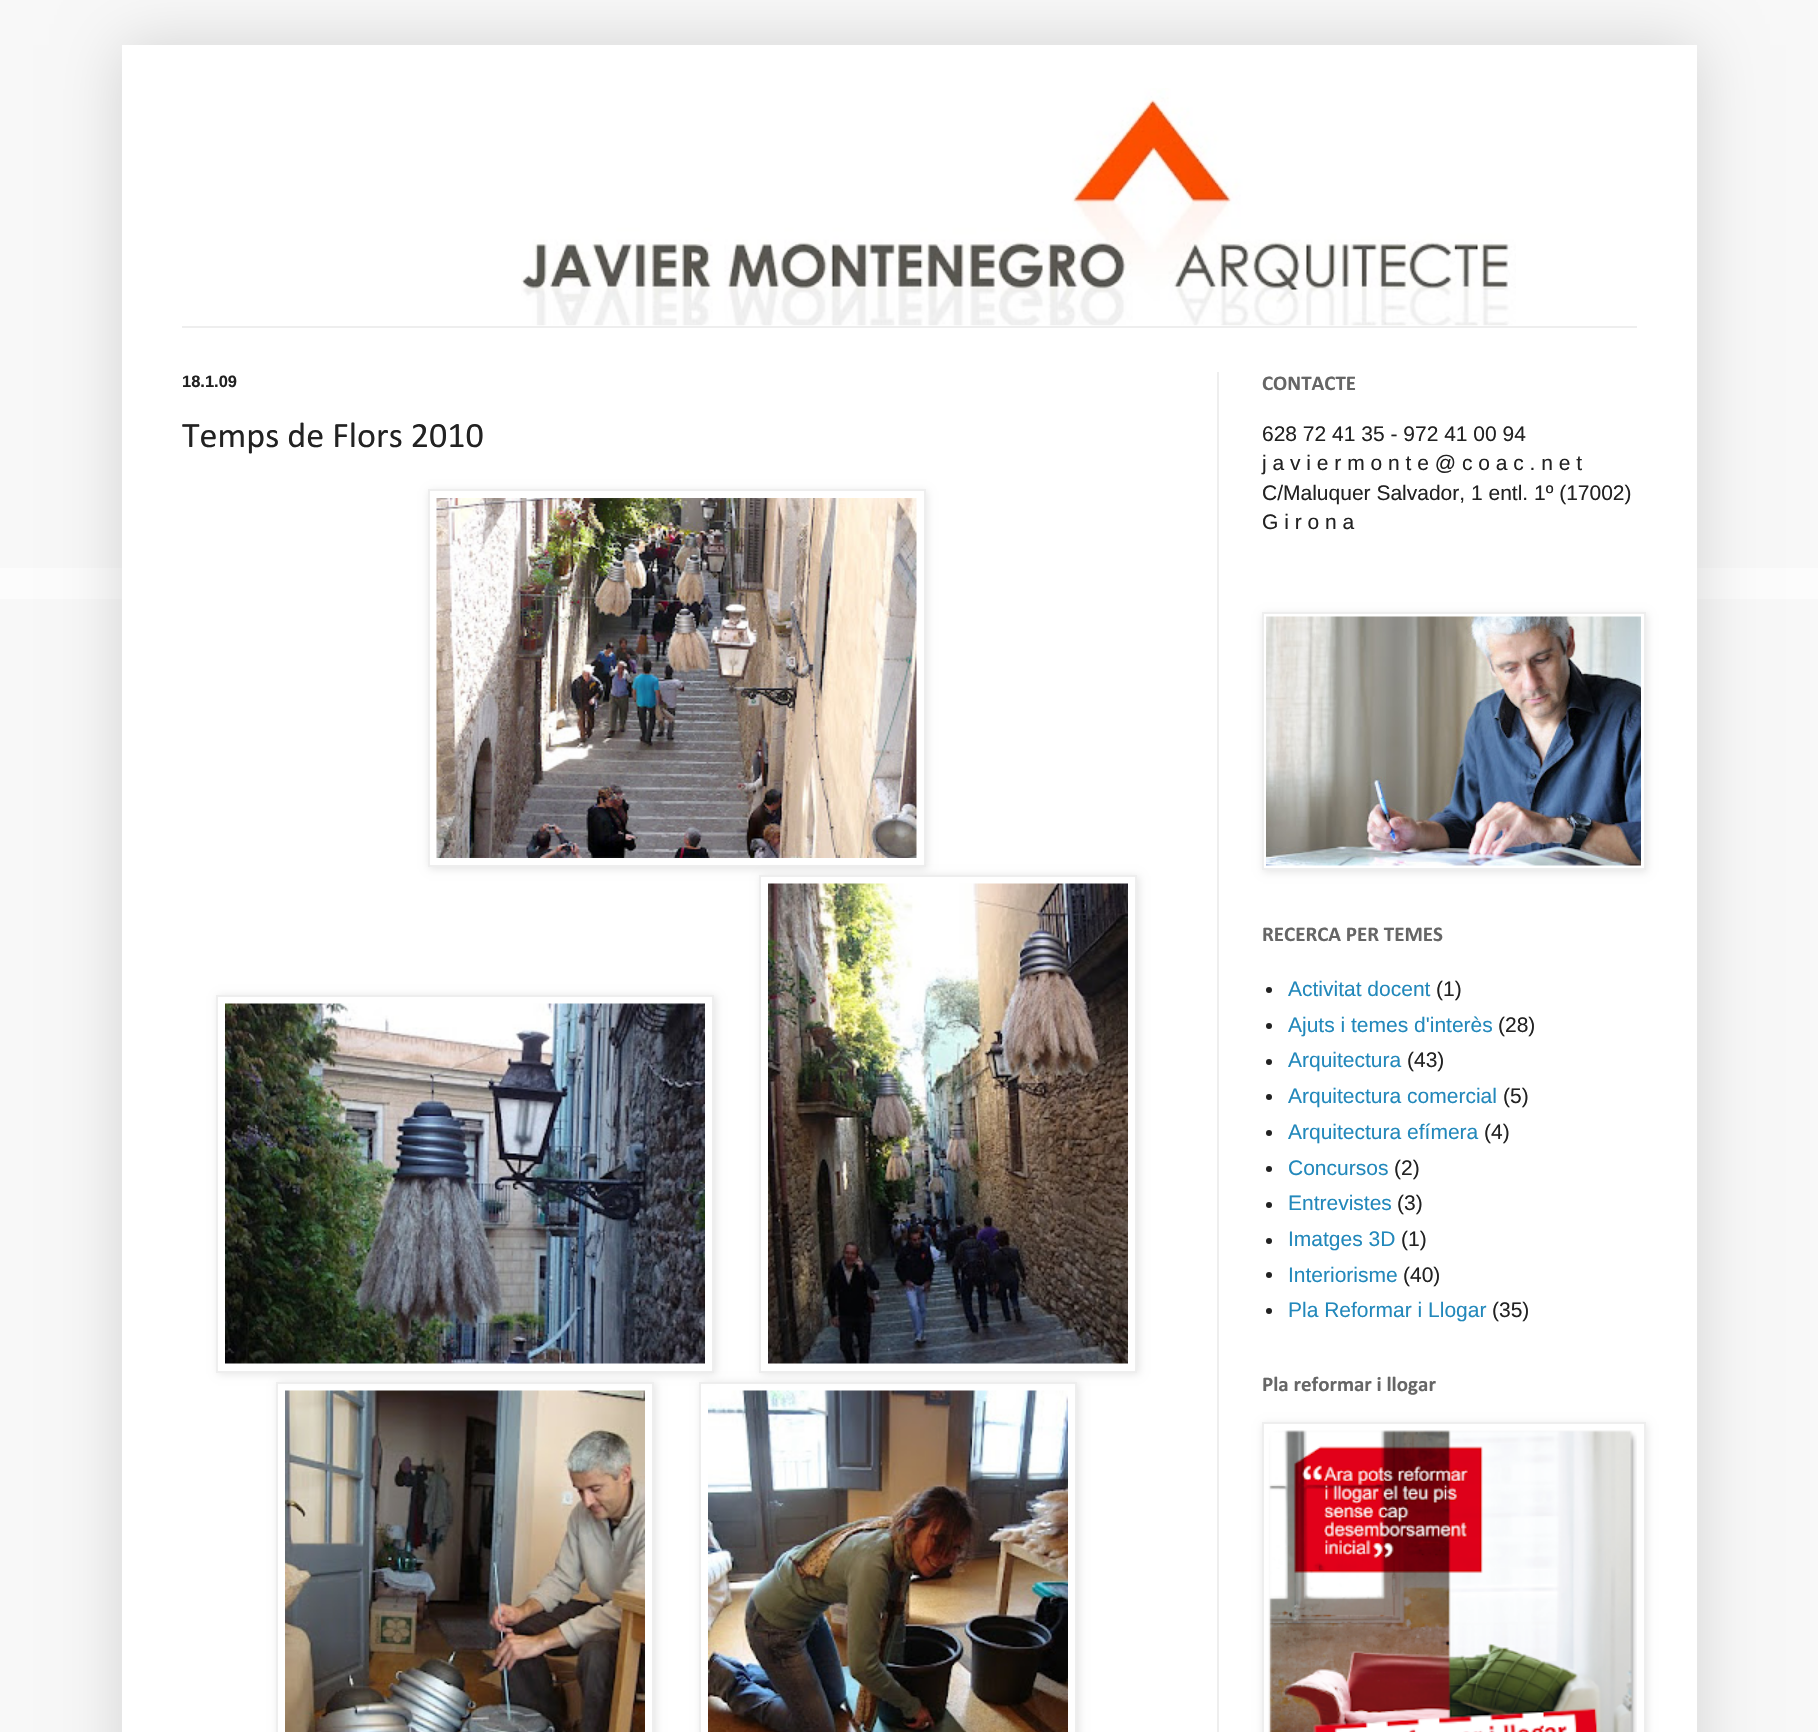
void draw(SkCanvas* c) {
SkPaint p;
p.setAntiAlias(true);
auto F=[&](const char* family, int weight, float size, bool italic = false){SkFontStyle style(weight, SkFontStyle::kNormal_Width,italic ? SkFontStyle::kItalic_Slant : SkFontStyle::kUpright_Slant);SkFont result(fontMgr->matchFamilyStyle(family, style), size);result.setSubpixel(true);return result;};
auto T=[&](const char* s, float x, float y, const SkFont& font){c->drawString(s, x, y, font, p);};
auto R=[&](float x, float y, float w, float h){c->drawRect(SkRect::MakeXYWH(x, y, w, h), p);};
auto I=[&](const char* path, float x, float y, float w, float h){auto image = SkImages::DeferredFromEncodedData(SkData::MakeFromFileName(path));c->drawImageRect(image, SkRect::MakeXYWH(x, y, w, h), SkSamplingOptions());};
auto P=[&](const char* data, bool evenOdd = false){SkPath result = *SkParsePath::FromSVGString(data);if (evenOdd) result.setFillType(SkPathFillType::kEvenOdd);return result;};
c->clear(0xfff8f8f8);
I("9.png",0,568,1818,31);
p.setColor(0x26000000);
p.setMaskFilter(SkMaskFilter::MakeBlur(kNormal_SkBlurStyle, 30));
c->drawRect(SkRect::MakeXYWH(122,45,1575,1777),p);
p.setMaskFilter(nullptr);
p.setColor(0xffffffff);
R(122,45,1575,1687);
I("1.png",521,88,995,238);
p.setColor(0xffeeeeee);
R(182,326,1455,2);
R(1217,372,2,1360);
auto f1 = F("Liberation Sans",700,16.5);
p.setColor(0xff222222);
T("18.1.09",182,387,f1);
auto f2 = F("Calibri",400,36);
T("Temps de Flors 2010",182,447,f2);
p.setColor(0x1a000000);
p.setMaskFilter(SkMaskFilter::MakeBlur(kNormal_SkBlurStyle, 4));
c->drawRect(SkRect::MakeXYWH(429,491,498,378),p);
p.setMaskFilter(nullptr);
p.setColor(0xffffffff);
c->drawRect(SkRect::MakeXYWH(429,490,496,376),p);
p.setStroke(true);
p.setStrokeWidth(2);
p.setColor(0xffeeeeee);
c->drawRect(SkRect::MakeXYWH(429,490,496,376),p);
I("2.png",436,498,481,360);
p.setStroke(false);
p.setColor(0x1a000000);
p.setMaskFilter(SkMaskFilter::MakeBlur(kNormal_SkBlurStyle, 4));
c->drawRect(SkRect::MakeXYWH(761,876,378,498),p);
p.setMaskFilter(nullptr);
p.setColor(0xffffffff);
c->drawRect(SkRect::MakeXYWH(760,876,376,496),p);
p.setStroke(true);
p.setColor(0xffeeeeee);
c->drawRect(SkRect::MakeXYWH(760,876,376,496),p);
p.setStroke(false);
p.setColor(0x1a000000);
p.setMaskFilter(SkMaskFilter::MakeBlur(kNormal_SkBlurStyle, 4));
c->drawRect(SkRect::MakeXYWH(218,996,498,378),p);
p.setMaskFilter(nullptr);
I("3.png",768,883,360,481);
p.setColor(0xffffffff);
c->drawRect(SkRect::MakeXYWH(217,996,496,376),p);
p.setStroke(true);
p.setColor(0xffeeeeee);
c->drawRect(SkRect::MakeXYWH(217,996,496,376),p);
I("4.png",225,1003,480,361);
c->save();
c->clipPath(P("M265 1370h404v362h-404zm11 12h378v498h-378z",true),true);
p.setStroke(false);
p.setColor(0x1a000000);
p.setMaskFilter(SkMaskFilter::MakeBlur(kNormal_SkBlurStyle, 4));
c->drawRect(SkRect::MakeXYWH(278,1383,378,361),p);
p.setMaskFilter(nullptr);
c->restore();
c->save();
c->clipPath(P("M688 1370h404v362h-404zm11 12h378v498h-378z",true),true);
p.setMaskFilter(SkMaskFilter::MakeBlur(kNormal_SkBlurStyle, 4));
c->drawRect(SkRect::MakeXYWH(701,1383,378,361),p);
p.setMaskFilter(nullptr);
c->restore();
p.setStroke(true);
p.setColor(0xffeeeeee);
c->drawRect(SkRect::MakeXYWH(277,1383,376,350),p);
c->drawRect(SkRect::MakeXYWH(700,1383,376,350),p);
I("5.png",285,1390,360,342);
I("6.png",708,1390,360,342);
auto f3 = F("Calibri",700,21);
p.setStroke(false);
p.setColor(0xff666666);
T("CONTACTE",1262,390,f3);
auto f4 = F("Liberation Sans",400,21);
p.setColor(0xff222222);
T("628 72 41 35 - 972 41 00 94",1262,441,f4);
T("j a v i e r m o n t e @ c o a c . n e t",1262,470,f4);
T("C/Maluquer Salvador, 1 entl. 1º (17002)",1262,500,f4);
T("G i r o n a",1262,529,f4);
p.setColor(0x1a000000);
p.setMaskFilter(SkMaskFilter::MakeBlur(kNormal_SkBlurStyle, 4));
c->drawRect(SkRect::MakeXYWH(1263,614,384,258),p);
p.setMaskFilter(nullptr);
p.setColor(0xffffffff);
c->drawRect(SkRect::MakeXYWH(1263,613,382,256),p);
p.setStroke(true);
p.setColor(0xffeeeeee);
c->drawRect(SkRect::MakeXYWH(1263,613,382,256),p);
I("7.png",1266,616,375,250);
p.setStroke(false);
p.setColor(0xff666666);
T("RECERCA PER TEMES",1262,941,f3);
p.setColor(0xff222222);
c->drawCircle(1269,990,3,p);
p.setColor(0xff2288bb);
T("Activitat docent",1288,996,f4);
p.setColor(0xff222222);
T("(1)",1436,996,f4);
c->drawCircle(1269,1026,3,p);
p.setColor(0xff2288bb);
T("Ajuts i temes d'interès",1288,1032,f4);
p.setColor(0xff222222);
T("(28)",1498,1032,f4);
c->drawCircle(1269,1062,3,p);
p.setColor(0xff2288bb);
T("Arquitectura",1288,1067,f4);
p.setColor(0xff222222);
T("(43)",1407,1067,f4);
c->drawCircle(1269,1097,3,p);
p.setColor(0xff2288bb);
T("Arquitectura comercial",1288,1103,f4);
p.setColor(0xff222222);
T("(5)",1503,1103,f4);
c->drawCircle(1269,1133,3,p);
p.setColor(0xff2288bb);
T("Arquitectura efímera",1288,1139,f4);
p.setColor(0xff222222);
T("(4)",1484,1139,f4);
c->drawCircle(1269,1169,3,p);
p.setColor(0xff2288bb);
T("Concursos",1288,1175,f4);
p.setColor(0xff222222);
T("(2)",1394,1175,f4);
c->drawCircle(1269,1205,3,p);
p.setColor(0xff2288bb);
T("Entrevistes",1288,1210,f4);
p.setColor(0xff222222);
T("(3)",1397,1210,f4);
c->drawCircle(1269,1241,3,p);
p.setColor(0xff2288bb);
T("Imatges 3D",1288,1246,f4);
p.setColor(0xff222222);
T("(1)",1401,1246,f4);
c->drawCircle(1269,1275,3,p);
p.setColor(0xff2288bb);
T("Interiorisme",1288,1282,f4);
p.setColor(0xff222222);
T("(40)",1403,1282,f4);
c->drawCircle(1269,1311,3,p);
p.setColor(0xff2288bb);
T("Pla Reformar i Llogar",1288,1317,f4);
p.setColor(0xff222222);
T("(35)",1492,1317,f4);
p.setColor(0xff666666);
T("Pla reformar i llogar",1262,1391,f3);
p.setColor(0x1a000000);
p.setMaskFilter(SkMaskFilter::MakeBlur(kNormal_SkBlurStyle, 4));
c->drawRect(SkRect::MakeXYWH(1263,1424,384,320),p);
p.setMaskFilter(nullptr);
p.setColor(0xffffffff);
c->drawRect(SkRect::MakeXYWH(1263,1423,382,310),p);
p.setStroke(true);
p.setColor(0xffeeeeee);
c->drawRect(SkRect::MakeXYWH(1263,1423,382,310),p);
I("8.png",1268,1430,369,302);
}
